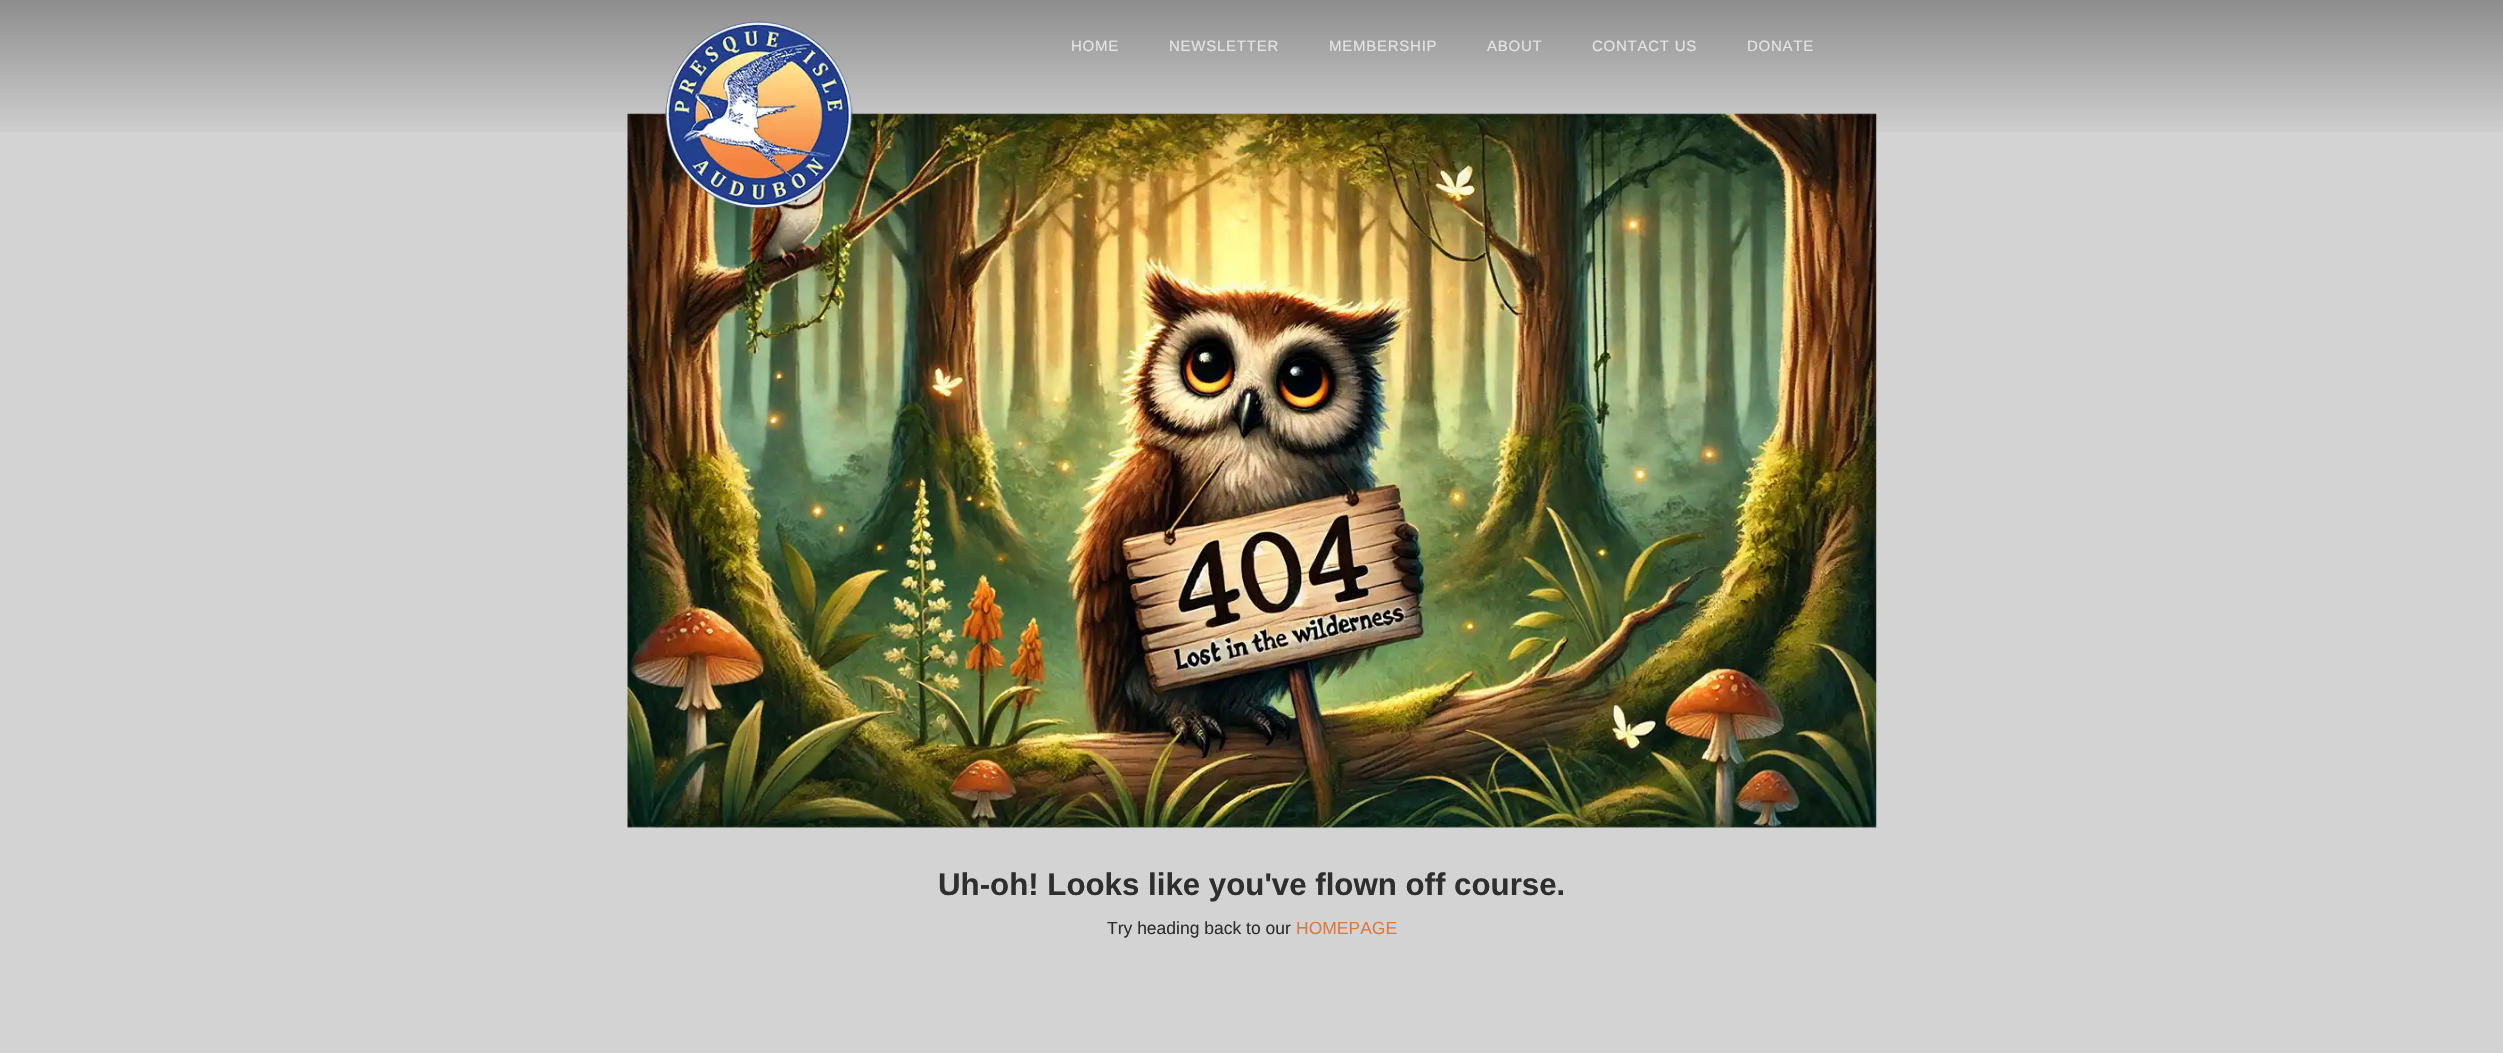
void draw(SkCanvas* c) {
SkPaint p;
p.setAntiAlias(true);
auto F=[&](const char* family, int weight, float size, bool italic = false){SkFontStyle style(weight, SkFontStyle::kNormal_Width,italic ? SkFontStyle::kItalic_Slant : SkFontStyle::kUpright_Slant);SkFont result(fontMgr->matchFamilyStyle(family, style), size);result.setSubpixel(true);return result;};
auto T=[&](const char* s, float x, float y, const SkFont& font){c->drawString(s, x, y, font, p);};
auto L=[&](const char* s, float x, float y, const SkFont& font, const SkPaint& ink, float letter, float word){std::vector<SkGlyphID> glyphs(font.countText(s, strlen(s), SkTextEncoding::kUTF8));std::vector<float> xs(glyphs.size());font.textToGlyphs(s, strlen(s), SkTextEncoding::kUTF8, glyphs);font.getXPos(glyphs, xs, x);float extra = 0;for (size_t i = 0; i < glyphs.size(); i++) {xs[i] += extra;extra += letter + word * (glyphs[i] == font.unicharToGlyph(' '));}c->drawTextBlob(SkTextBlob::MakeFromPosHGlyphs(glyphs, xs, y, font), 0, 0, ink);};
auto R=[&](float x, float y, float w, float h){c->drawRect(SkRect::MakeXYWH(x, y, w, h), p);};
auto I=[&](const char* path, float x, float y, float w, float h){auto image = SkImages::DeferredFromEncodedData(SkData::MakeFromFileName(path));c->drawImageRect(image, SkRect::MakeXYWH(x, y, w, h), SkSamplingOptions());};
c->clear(0xffd3d3d3);
I("2.png",627,113,1250,715);
{
const SkColor colors[] = {0x54000000,0x00000000};
const float stops[] = {0,.99};
const SkPoint ends[] = {{1252,0}, {1252,143}};
p.setShader(SkGradientShader::MakeLinear(ends, colors, stops, 2, SkTileMode::kClamp));
p.setAlpha(255);
}
R(0,0,2503,132);
I("1.png",665,21,188,188);
auto f1 = F("Liberation Sans",400,15);
p.setShader(nullptr);
p.setColor(0xffe4e4e4);
L("HOME",1071,51,f1,p,.75,0);
L("NEWSLETTER",1169,51,f1,p,.75,0);
L("MEMBERSHIP",1329,51,f1,p,.75,0);
L("ABOUT",1487,51,f1,p,.75,0);
L("CONTACT US",1592,51,f1,p,.75,0);
L("DONATE",1747,51,f1,p,.75,0);
auto f2 = F("Liberation Sans",700,31.25);
p.setColor(0xff2e2e2e);
T("Uh-oh! Looks like you've flown off course.",938,895,f2);
auto f3 = F("Liberation Sans",400,17.5);
T("Try heading back to our",1107,934,f3);
p.setColor(0xffdd783f);
T("HOMEPAGE",1296,934,f3);
}
